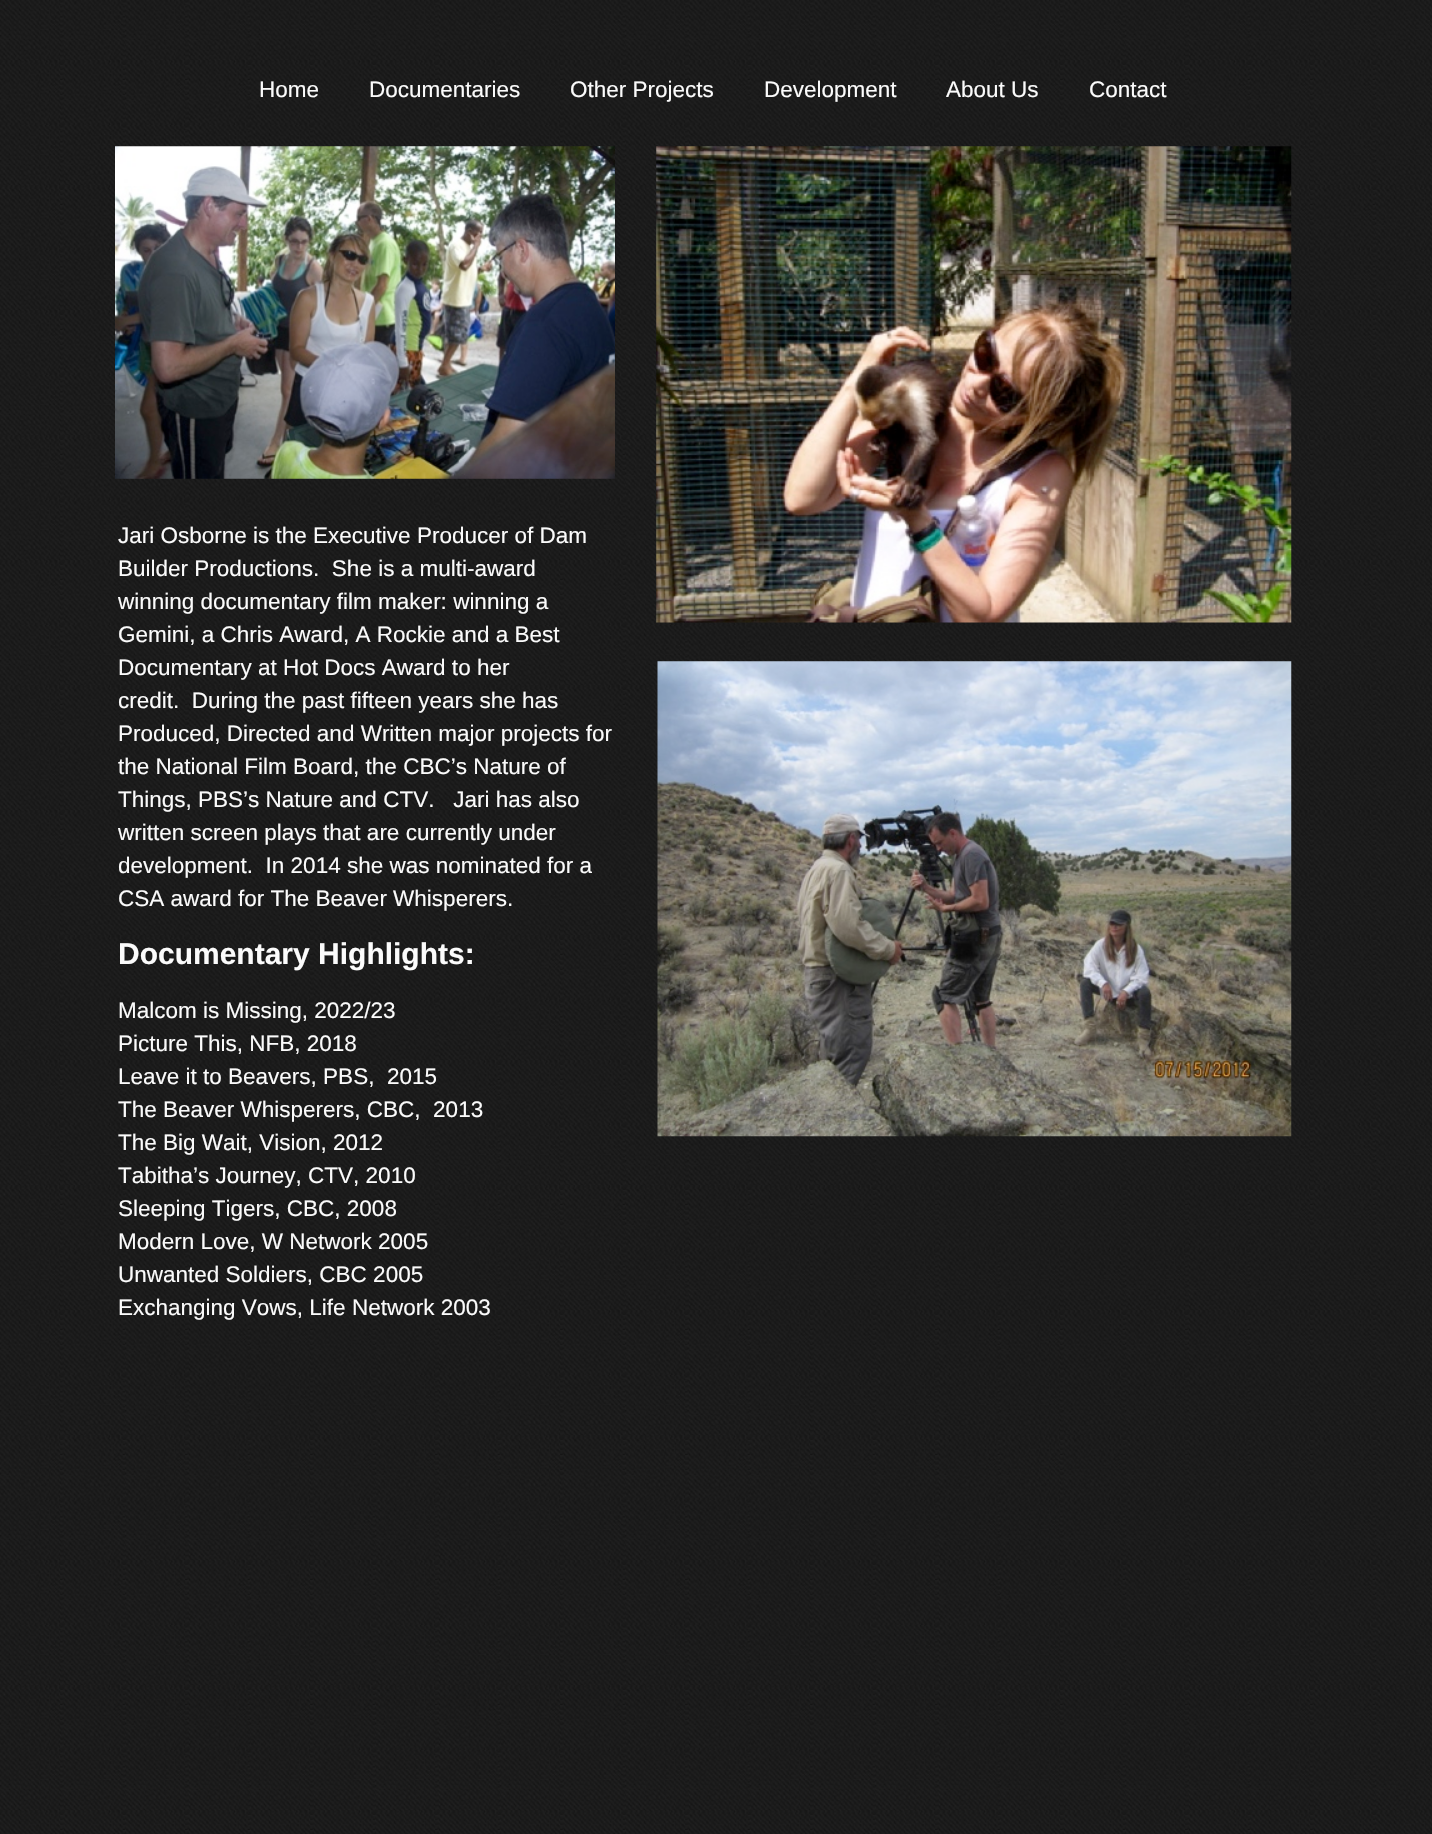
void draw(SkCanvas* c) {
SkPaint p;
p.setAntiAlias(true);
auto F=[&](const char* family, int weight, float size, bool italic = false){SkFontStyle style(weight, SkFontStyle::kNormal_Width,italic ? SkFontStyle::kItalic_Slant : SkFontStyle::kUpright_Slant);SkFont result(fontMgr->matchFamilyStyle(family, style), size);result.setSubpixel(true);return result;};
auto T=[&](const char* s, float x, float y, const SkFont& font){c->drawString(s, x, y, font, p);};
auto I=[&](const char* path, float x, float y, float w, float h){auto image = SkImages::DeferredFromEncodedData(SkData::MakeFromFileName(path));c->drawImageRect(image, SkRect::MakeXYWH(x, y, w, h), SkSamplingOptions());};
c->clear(0xffffffff);
I("1.png",0,0,1432,1834);
auto f1 = F("Liberation Sans",400,22.5);
p.setColor(0xfffbfbfb);
T("Home",259,97,f1);
T("Documentaries",369,97,f1);
T("Other Projects",570,97,f1);
T("Development",764,97,f1);
T("About Us",946,97,f1);
T("Contact",1089,97,f1);
I("2.png",115,146,500,333);
I("3.png",656,146,636,477);
T("Jari Osborne is the Executive Producer of Dam",118,543,f1);
T("Builder Productions.  She is a multi-award",118,576,f1);
T("winning documentary film maker: winning a",118,609,f1);
T("Gemini, a Chris Award, A Rockie and a Best",118,642,f1);
T("Documentary at Hot Docs Award to her",118,675,f1);
T("credit.  During the past fifteen years she has",118,708,f1);
T("Produced, Directed and Written major projects for",118,741,f1);
T("the National Film Board, the CBC’s Nature of",118,774,f1);
T("Things, PBS’s Nature and CTV.   Jari has also",118,807,f1);
T("written screen plays that are currently under",118,840,f1);
T("development.  In 2014 she was nominated for a",118,873,f1);
T("CSA award for The Beaver Whisperers.",118,906,f1);
auto f2 = F("Liberation Sans",700,30);
T("Documentary Highlights:",118,964,f2);
T("Malcom is Missing, 2022/23",118,1018,f1);
T("Picture This, NFB, 2018",118,1051,f1);
T("Leave it to Beavers, PBS,  2015",118,1084,f1);
T("The Beaver Whisperers, CBC,  2013",118,1117,f1);
T("The Big Wait, Vision, 2012",118,1150,f1);
T("Tabitha’s Journey, CTV, 2010",118,1183,f1);
T("Sleeping Tigers, CBC, 2008",118,1216,f1);
T("Modern Love, W Network 2005",118,1249,f1);
T("Unwanted Soldiers, CBC 2005",118,1282,f1);
T("Exchanging Vows, Life Network 2003",118,1315,f1);
I("4.png",657,661,635,476);
}
